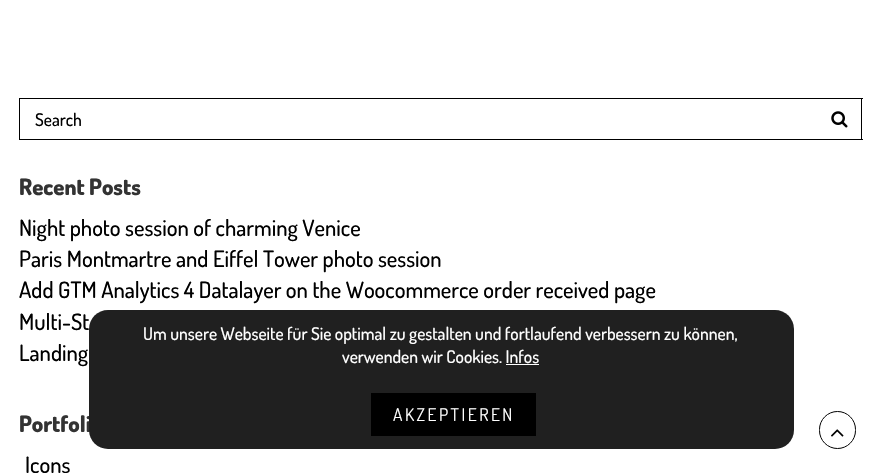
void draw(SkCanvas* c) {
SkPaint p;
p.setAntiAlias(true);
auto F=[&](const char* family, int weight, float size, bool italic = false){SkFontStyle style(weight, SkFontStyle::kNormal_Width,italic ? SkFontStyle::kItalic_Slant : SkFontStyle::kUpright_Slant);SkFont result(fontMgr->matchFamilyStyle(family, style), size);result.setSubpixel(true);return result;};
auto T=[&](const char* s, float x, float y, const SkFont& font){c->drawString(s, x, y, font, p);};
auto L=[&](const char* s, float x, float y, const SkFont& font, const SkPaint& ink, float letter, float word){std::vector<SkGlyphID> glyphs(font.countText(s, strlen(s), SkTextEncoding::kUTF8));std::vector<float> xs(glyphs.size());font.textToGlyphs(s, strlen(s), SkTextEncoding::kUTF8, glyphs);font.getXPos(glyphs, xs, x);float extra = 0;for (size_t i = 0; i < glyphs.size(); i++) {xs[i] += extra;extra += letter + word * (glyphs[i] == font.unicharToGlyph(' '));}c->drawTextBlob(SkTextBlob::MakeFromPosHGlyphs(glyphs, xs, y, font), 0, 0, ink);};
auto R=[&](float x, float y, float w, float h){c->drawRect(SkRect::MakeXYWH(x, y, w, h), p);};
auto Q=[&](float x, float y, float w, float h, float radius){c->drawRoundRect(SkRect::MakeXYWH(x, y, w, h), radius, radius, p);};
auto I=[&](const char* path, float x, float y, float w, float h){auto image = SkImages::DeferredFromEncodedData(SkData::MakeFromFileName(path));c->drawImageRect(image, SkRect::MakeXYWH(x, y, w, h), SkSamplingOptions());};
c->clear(0xffffffff);
p.setColor(0xff000000);
R(19,98,844,1);
R(861,98,1,42);
R(19,139,844,1);
I("1.png",831,111,17,17);
R(19,98,1,42);
auto f1 = F("Dosis",500,17.5);
T("Search",35,126,f1);
auto f2 = F("Dosis",800,22.5);
p.setColor(0xff333333);
T("Recent Posts",19,195,f2);
auto f3 = F("Dosis",500,22.5);
p.setColor(0xff000000);
T("Night photo session of charming Venice",19,236,f3);
T("Paris Montmartre and Eiffel Tower photo session",19,267,f3);
T("Add GTM Analytics 4 Datalayer on the Woocommerce order received page",19,298,f3);
T("Multi-St",19,330,f3);
T("Landing",19,361,f3);
p.setColor(0xff333333);
T("Portfoli",19,432,f2);
p.setColor(0xff000000);
T("Icons",25,473,f3);
p.setColor(0xff202020);
Q(89,310,705,139,19);
p.setColor(0xffffffff);
T("Um unsere Webseite für Sie optimal zu gestalten und fortlaufend verbessern zu können,",143,340,f1);
T("verwenden wir Cookies. Infos",342,363,f1);
R(506,364,33,1);
p.setColor(0xff000000);
R(371,393,165,43);
auto f4 = F("Dosis",400,17.5);
p.setColor(0xffffffff);
L("AKZEPTIEREN",393,421,f4,p,2.5,0);
p.setStroke(true);
p.setStrokeWidth(1);
p.setColor(0xff000000);
c->drawRoundRect(SkRect::MakeXYWH(819.5,411.5,36,37),18,18,p);
I("2.png",831,429,13,8);
}
